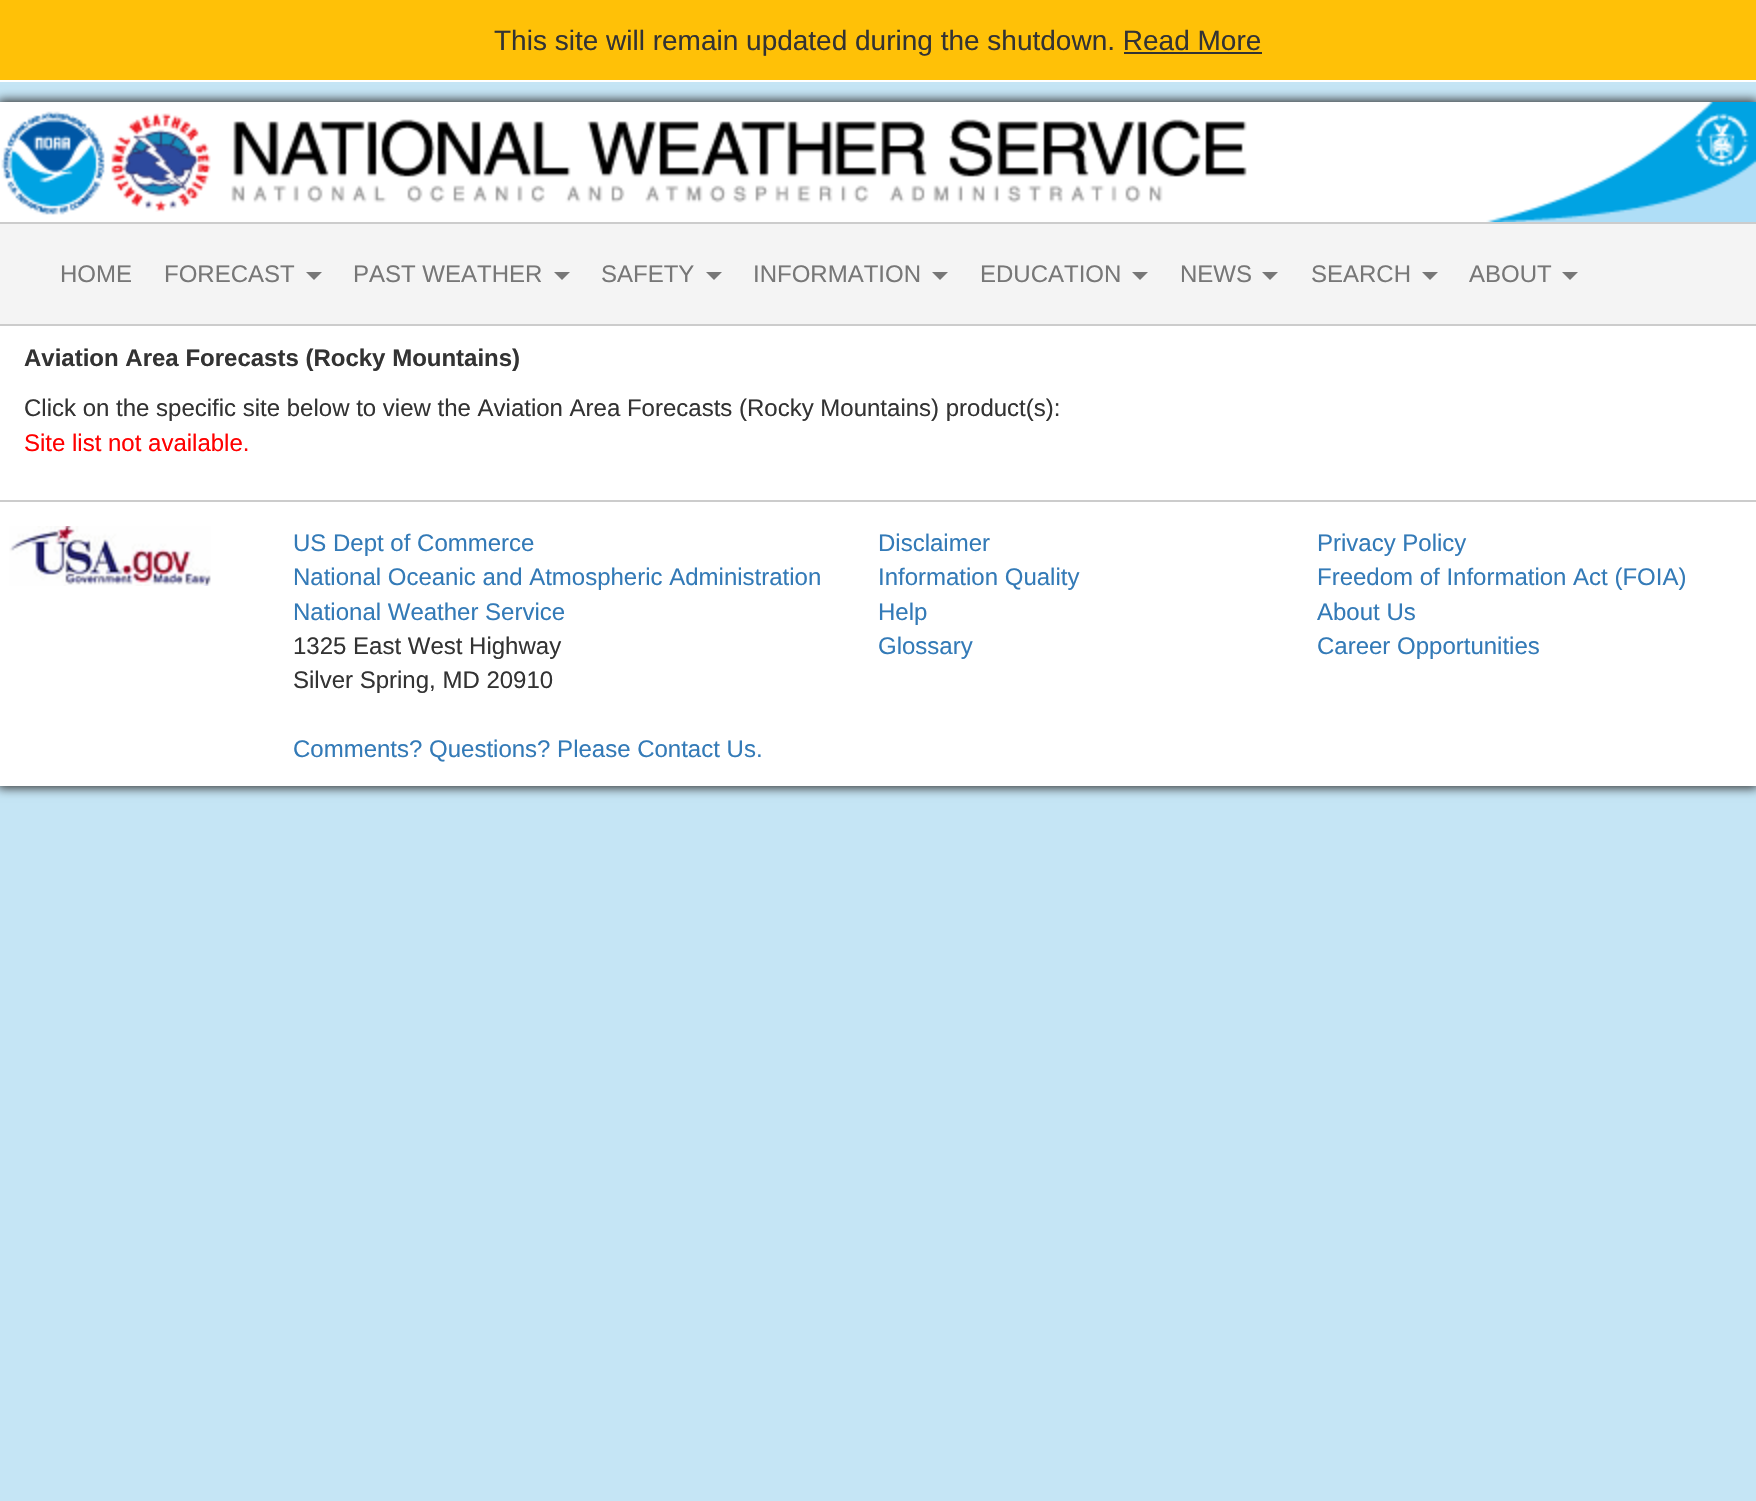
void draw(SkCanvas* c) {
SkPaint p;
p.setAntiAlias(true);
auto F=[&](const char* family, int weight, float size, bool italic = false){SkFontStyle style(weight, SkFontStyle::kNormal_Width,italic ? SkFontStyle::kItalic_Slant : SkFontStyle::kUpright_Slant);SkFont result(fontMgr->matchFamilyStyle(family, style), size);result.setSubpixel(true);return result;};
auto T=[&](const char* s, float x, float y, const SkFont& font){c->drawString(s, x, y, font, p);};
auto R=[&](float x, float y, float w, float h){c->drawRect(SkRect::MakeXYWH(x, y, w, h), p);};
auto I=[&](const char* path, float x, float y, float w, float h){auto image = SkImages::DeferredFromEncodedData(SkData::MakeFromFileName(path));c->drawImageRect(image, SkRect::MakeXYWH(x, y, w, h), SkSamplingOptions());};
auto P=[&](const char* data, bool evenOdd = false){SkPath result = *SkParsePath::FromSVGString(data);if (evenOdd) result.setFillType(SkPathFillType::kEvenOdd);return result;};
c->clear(0xffc5e5f5);
p.setColor(0xffffc107);
R(0,0,1756,80);
p.setColor(0xffffffff);
R(0,80,1756,2);
auto f1 = F("Liberation Sans",400,28);
p.setColor(0xff333333);
T("This site will remain updated during the shutdown. Read More",494,50,f1);
R(1124,52,138,2);
p.setMaskFilter(SkMaskFilter::MakeBlur(kNormal_SkBlurStyle, 5));
c->drawRect(SkRect::MakeXYWH(-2,100,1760,688),p);
p.setMaskFilter(nullptr);
p.setColor(0xffffffff);
R(0,102,1756,684);
I("1.png",1,111,104,104);
I("2.png",111,113,1136,99);
I("3.png",1486,102,270,120);
p.setColor(0xfff4f4f4);
R(0,224,1756,100);
p.setColor(0xffcccccc);
R(0,222,1756,2);
R(0,324,1756,2);
auto f2 = F("Liberation Sans",400,24);
p.setColor(0xff777777);
T("HOME",60,282,f2);
T("FORECAST",164,282,f2);
c->drawPath(P("M306 272h16l-8 8z"),p);
T("PAST WEATHER",353,282,f2);
c->drawPath(P("M554 272h16l-8 8z"),p);
T("SAFETY",601,282,f2);
c->drawPath(P("M706 272h16l-8 8z"),p);
T("INFORMATION",753,282,f2);
c->drawPath(P("M932 272h16l-8 8z"),p);
T("EDUCATION",980,282,f2);
c->drawPath(P("M1132 272h16l-8 8z"),p);
T("NEWS",1180,282,f2);
c->drawPath(P("M1262 272h16l-8 8z"),p);
T("SEARCH",1311,282,f2);
c->drawPath(P("M1422 272h16l-8 8z"),p);
T("ABOUT",1469,282,f2);
c->drawPath(P("M1562 272h16l-8 8z"),p);
auto f3 = F("Liberation Sans",700,24);
p.setColor(0xff333333);
T("Aviation Area Forecasts (Rocky Mountains)",24,366,f3);
T("Click on the specific site below to view the Aviation Area Forecasts (Rocky Mountains) product(s):",24,416,f2);
p.setColor(0xffff0000);
T("Site list not available.",24,451,f2);
p.setColor(0xffcccccc);
R(0,500,1756,2);
I("4.png",9,526,202,60);
p.setColor(0xff337ab7);
T("US Dept of Commerce",293,551,f2);
T("National Oceanic and Atmospheric Administration",293,585,f2);
T("National Weather Service",293,620,f2);
p.setColor(0xff333333);
T("1325 East West Highway",293,654,f2);
T("Silver Spring, MD 20910",293,688,f2);
p.setColor(0xff337ab7);
T("Comments? Questions? Please Contact Us.",293,757,f2);
T("Disclaimer",878,551,f2);
T("Information Quality",878,585,f2);
T("Help",878,620,f2);
T("Glossary",878,654,f2);
T("Privacy Policy",1317,551,f2);
T("Freedom of Information Act (FOIA)",1317,585,f2);
T("About Us",1317,620,f2);
T("Career Opportunities",1317,654,f2);
}
